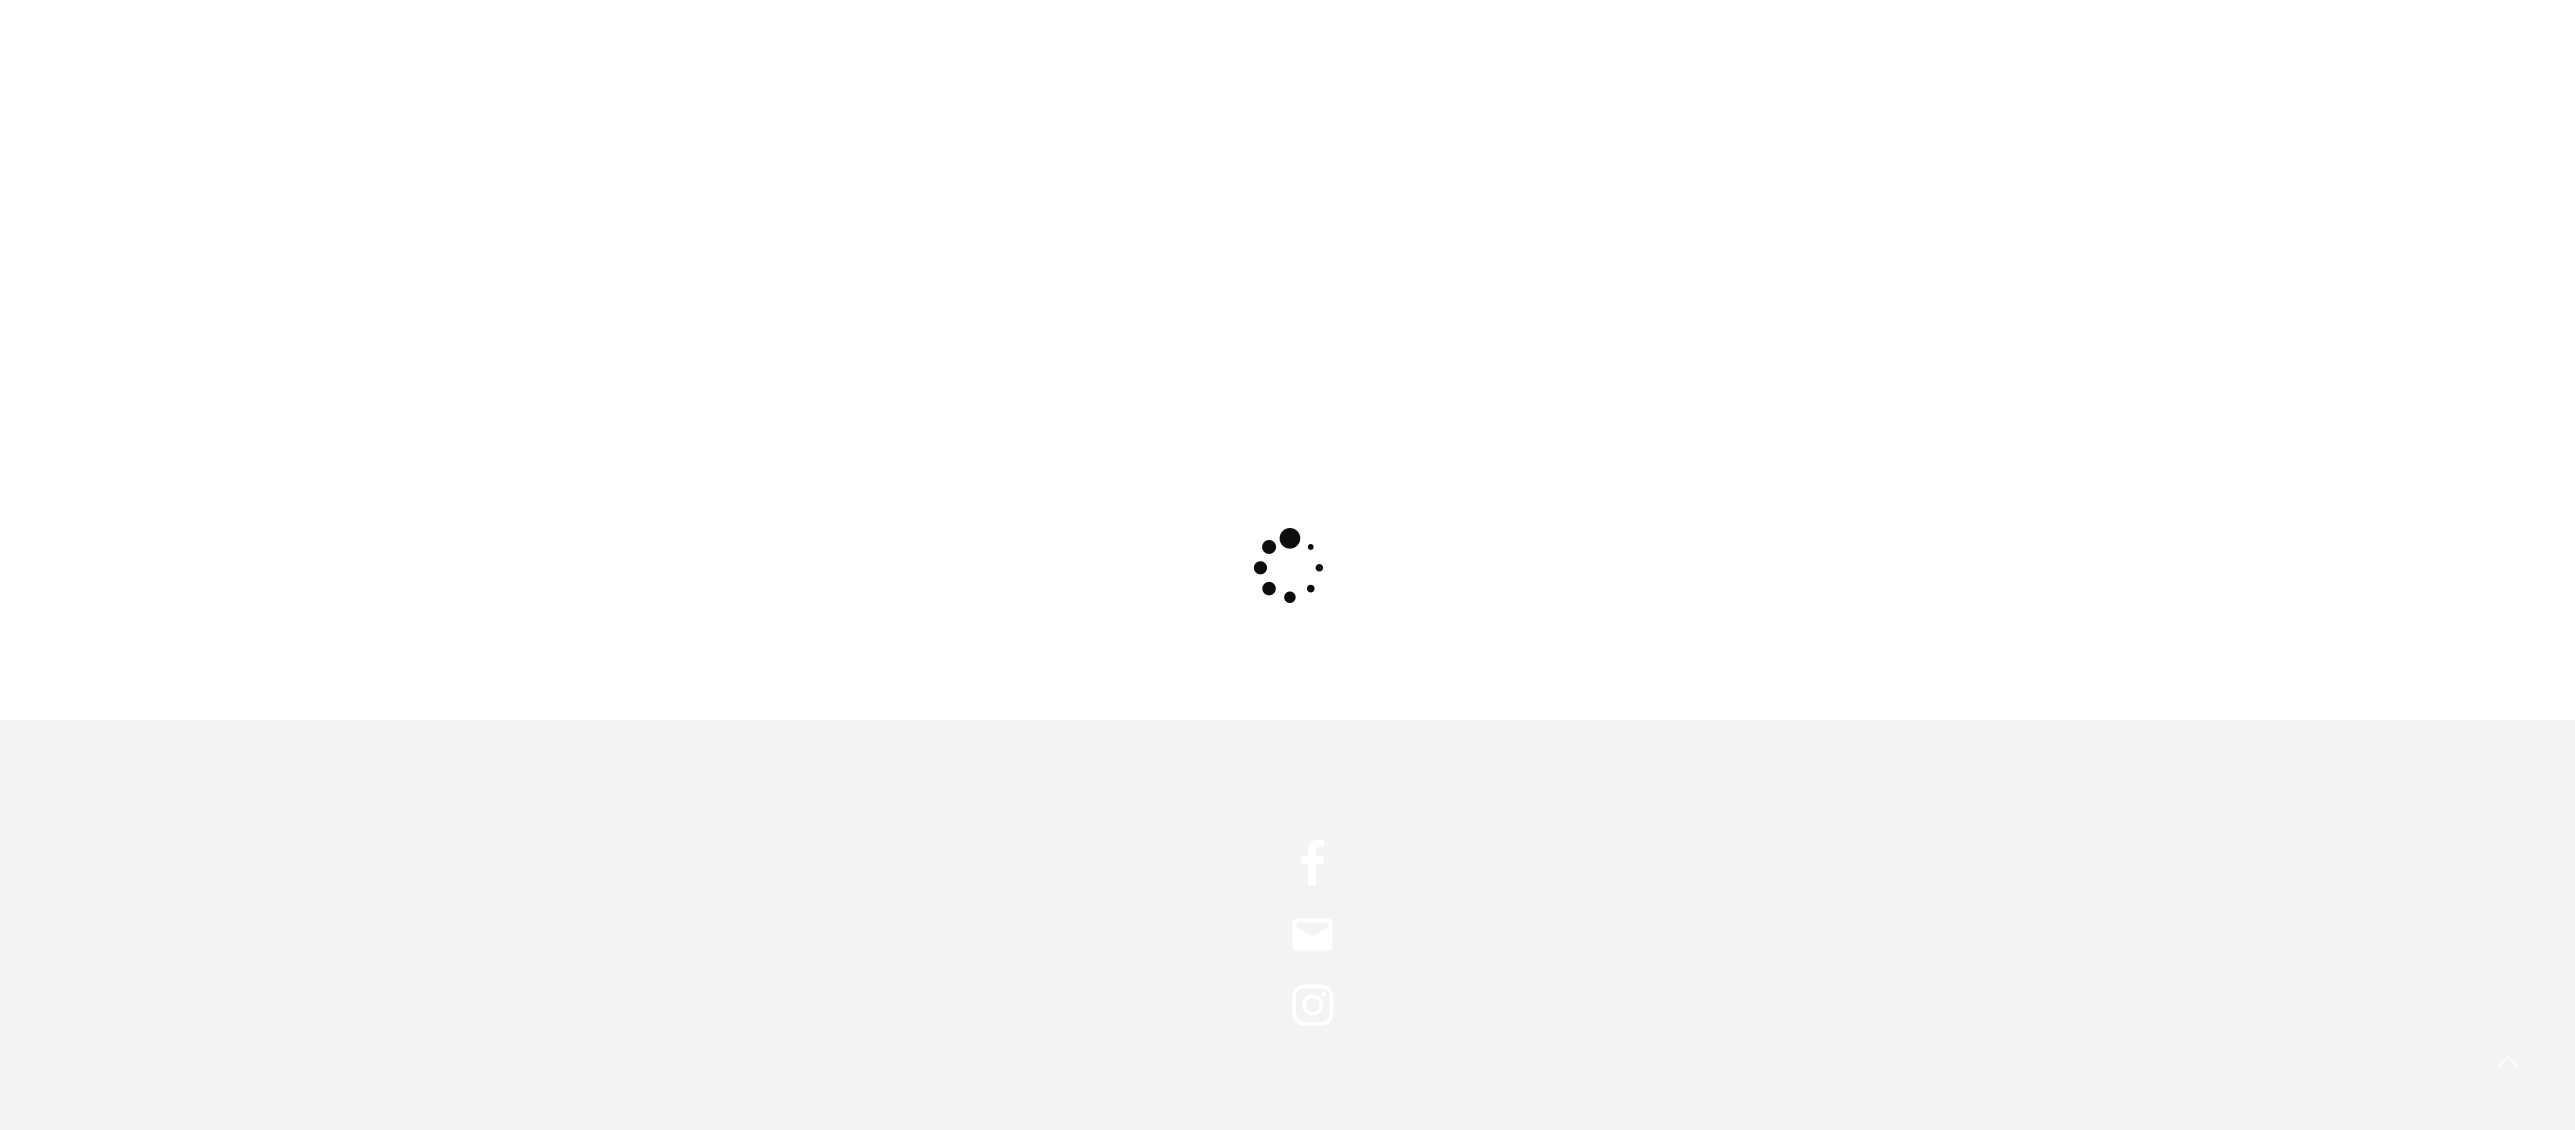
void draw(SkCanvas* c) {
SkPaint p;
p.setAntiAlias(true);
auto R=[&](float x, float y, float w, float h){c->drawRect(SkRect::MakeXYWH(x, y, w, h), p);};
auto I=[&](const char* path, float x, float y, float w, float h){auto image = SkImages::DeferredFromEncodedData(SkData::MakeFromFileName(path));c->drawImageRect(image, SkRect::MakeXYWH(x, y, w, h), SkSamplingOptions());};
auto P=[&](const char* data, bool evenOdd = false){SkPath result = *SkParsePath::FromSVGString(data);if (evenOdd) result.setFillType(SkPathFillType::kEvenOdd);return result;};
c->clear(0xffffffff);
I("1.png",1253,528,71,75);
p.setColor(0xfff3f3f3);
R(0,720,2575,410);
c->save();
c->clipRect(SkRect::MakeXYWH(1289,840,48,48));
p.setColor(0xffffffff);
c->drawPath(P("M1324 840v7c-9 0-8 1-8 9h8l-1 8h-7v21h-8v-21h-7v-8h7c0-13 2-18 16-16z"),p);
c->restore();
I("2.png",1292,918,41,33);
I("3.png",1292,984,42,42);
I("4.png",2498,1056,21,12);
}
